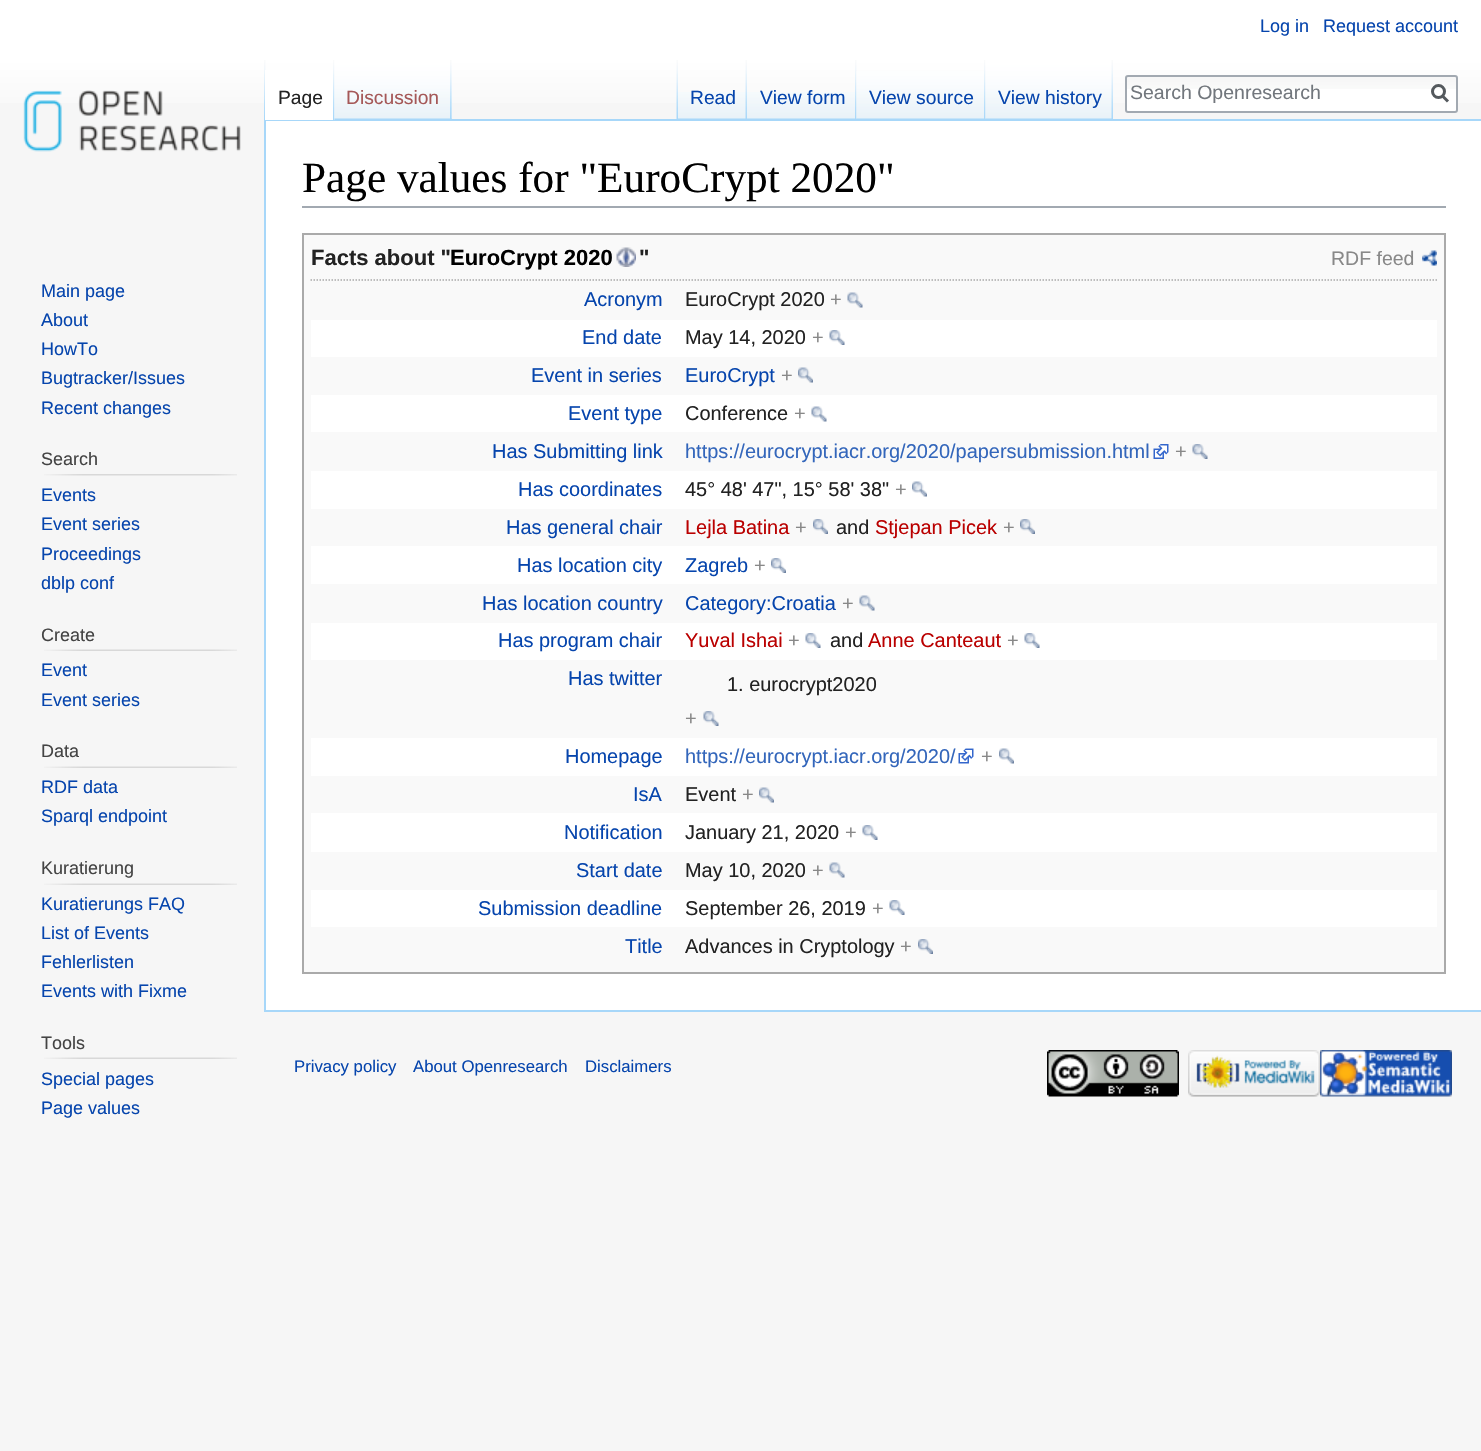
void draw(SkCanvas* c) {
SkPaint p;
p.setAntiAlias(true);
auto F=[&](const char* family, int weight, float size, bool italic = false){SkFontStyle style(weight, SkFontStyle::kNormal_Width,italic ? SkFontStyle::kItalic_Slant : SkFontStyle::kUpright_Slant);SkFont result(fontMgr->matchFamilyStyle(family, style), size);result.setSubpixel(true);return result;};
auto T=[&](const char* s, float x, float y, const SkFont& font){c->drawString(s, x, y, font, p);};
auto R=[&](float x, float y, float w, float h){c->drawRect(SkRect::MakeXYWH(x, y, w, h), p);};
auto Q=[&](float x, float y, float w, float h, float radius){c->drawRoundRect(SkRect::MakeXYWH(x, y, w, h), radius, radius, p);};
auto I=[&](const char* path, float x, float y, float w, float h){auto image = SkImages::DeferredFromEncodedData(SkData::MakeFromFileName(path));c->drawImageRect(image, SkRect::MakeXYWH(x, y, w, h), SkSamplingOptions());};
auto P=[&](const char* data, bool evenOdd = false){SkPath result = *SkParsePath::FromSVGString(data);if (evenOdd) result.setFillType(SkPathFillType::kEvenOdd);return result;};
c->clear(0xfff6f6f6);
{
const SkColor colors[] = {0xffffffff,0xfff6f6f6};
const float stops[] = {.5,1};
const SkPoint ends[] = {{741,0}, {741,120}};
p.setShader(SkGradientShader::MakeLinear(ends, colors, stops, 2, SkTileMode::kClamp));
p.setAlpha(255);
}
R(0,0,1481,103);
auto f1 = F("Liberation Sans",400,18);
p.setShader(nullptr);
p.setColor(0xff0645ad);
T("Log in",1260,32,f1);
T("Request account",1323,32,f1);
I("1.png",264,60,2,59);
I("2.png",451,60,1,59);
p.setColor(0xffa7d7f9);
R(264,119,1217,2);
R(264,1010,1217,2);
R(264,119,2,892);
p.setColor(0xffffffff);
R(265,70,70,50);
I("3.png",333,60,2,60);
auto f2 = F("Liberation Sans",400,19.25);
p.setColor(0xff222222);
T("Page",278,104,f2);
I("4.png",334,60,118,60);
I("5.png",450,60,2,59);
p.setColor(0xffa55858);
T("Discussion",346,104,f2);
I("6.png",676,60,2,59);
I("7.png",678,92,68,27);
I("8.png",745,60,2,59);
p.setColor(0xff0645ad);
T("Read",690,104,f2);
I("9.png",747,92,110,27);
I("10.png",855,60,2,59);
T("View form",760,104,f2);
I("11.png",856,71,130,48);
I("12.png",984,60,2,59);
T("View source",869,104,f2);
I("13.png",985,60,127,59);
I("14.png",1111,60,2,59);
T("View history",998,104,f2);
p.setColor(0xffffffff);
Q(1125,75,333,38,3);
I("15.png",1125,76,333,13);
p.setStroke(true);
p.setStrokeWidth(2);
p.setColor(0xffa2a9b1);
c->drawRoundRect(SkRect::MakeXYWH(1126,76,331,36),2,2,p);
auto f3 = F("Liberation Sans",400,19.5);
p.setStroke(false);
p.setColor(0xff72777d);
T("Search Openresearch",1130,99,f3);
p.setStroke(true);
p.setStrokeWidth(3);
p.setColor(0xff54595d);
c->drawPath(P("M1448 101.5l-6-6"),p);
c->drawCircle(1438.5,91.5,6,p);
I("16.png",23,90,218,62);
p.setStroke(false);
p.setColor(0xff0645ad);
T("Main page",41,297,f1);
T("About",41,326,f1);
T("HowTo",41,355,f1);
T("Bugtracker/Issues",41,384,f1);
T("Recent changes",41,414,f1);
p.setColor(0xff444444);
T("Search",41,465,f1);
I("17.png",44,474,193,2);
p.setColor(0xff0645ad);
T("Events",41,501,f1);
T("Event series",41,530,f1);
T("Proceedings",41,560,f1);
T("dblp conf",41,589,f1);
p.setColor(0xff444444);
T("Create",41,641,f1);
I("18.png",44,649,193,2);
p.setColor(0xff0645ad);
T("Event",41,676,f1);
T("Event series",41,706,f1);
p.setColor(0xff444444);
T("Data",41,757,f1);
I("18.png",44,766,193,2);
p.setColor(0xff0645ad);
T("RDF data",41,793,f1);
T("Sparql endpoint",41,822,f1);
p.setColor(0xff444444);
T("Kuratierung",41,874,f1);
I("18.png",44,883,193,2);
p.setColor(0xff0645ad);
T("Kuratierungs FAQ",41,910,f1);
T("List of Events",41,939,f1);
T("Fehlerlisten",41,968,f1);
T("Events with Fixme",41,997,f1);
p.setColor(0xff444444);
T("Tools",41,1049,f1);
I("18.png",44,1057,193,2);
p.setColor(0xff0645ad);
T("Special pages",41,1085,f1);
T("Page values",41,1114,f1);
p.setColor(0xffffffff);
R(266,121,1215,889);
p.setColor(0xffa2a9b1);
R(302,206,1144,2);
auto f4 = F("Liberation Serif",400,43.25);
p.setColor(0xff000000);
T("Page values for \"EuroCrypt 2020\"",302,192,f4);
p.setColor(0xfff9f9f9);
c->drawRect(SkRect::MakeXYWH(303,234,1142,739),p);
p.setStroke(true);
p.setStrokeWidth(2);
p.setColor(0xffaaaaaa);
c->drawRect(SkRect::MakeXYWH(303,234,1142,739),p);
auto f5 = F("Liberation Sans",700,22);
p.setStroke(false);
p.setColor(0xff222222);
T("Facts about \"",311,265,f5);
p.setColor(0xff000000);
T("EuroCrypt 2020",450,265,f5);
I("19.png",616,247,20,20);
p.setColor(0xff222222);
T("\"",639,265,f5);
p.setColor(0xff888888);
T("RDF feed",1331,265,f3);
I("20.png",1422,250,15,16);
p.setStroke(true);
p.setStrokeWidth(1.5);
p.setColor(0xffaaaaaa);
p.setPathEffect(SkDashPathEffect::Make({{1.5f,1.5f}}, 0));
c->drawPath(P("M310.5 280h1126.5"),p);
p.setPathEffect(nullptr);
auto f6 = F("Liberation Sans",400,19.95);
p.setStroke(false);
p.setColor(0xff0645ad);
T("Acronym",584,306,f6);
p.setColor(0xff222222);
T("EuroCrypt 2020",685,306,f6);
p.setColor(0xff888888);
T("+",830,306,f6);
I("21.png",847,292,16,16);
p.setColor(0xffffffff);
R(311,320,1126,37);
p.setColor(0xff0645ad);
T("End date",582,344,f6);
p.setColor(0xff222222);
T("May 14, 2020",685,344,f6);
p.setColor(0xff888888);
T("+",812,344,f6);
I("22.png",829,330,16,15);
p.setColor(0xff0645ad);
T("Event in series",531,382,f6);
T("EuroCrypt",685,382,f6);
p.setColor(0xff888888);
T("+",781,382,f6);
I("23.png",798,367,15,16);
p.setColor(0xffffffff);
R(311,395,1126,37);
p.setColor(0xff0645ad);
T("Event type",568,420,f6);
p.setColor(0xff222222);
T("Conference",685,420,f6);
p.setColor(0xff888888);
T("+",794,420,f6);
I("24.png",811,406,16,16);
p.setColor(0xff0645ad);
T("Has Submitting link",492,458,f6);
p.setColor(0xff3366bb);
T("https://eurocrypt.iacr.org/2020/papersubmission.html",685,458,f6);
I("25.png",1153,444,16,15);
p.setColor(0xff888888);
T("+",1175,458,f6);
I("26.png",1192,444,16,15);
p.setColor(0xffffffff);
R(311,471,1126,38);
p.setColor(0xff0645ad);
T("Has coordinates",518,496,f6);
p.setColor(0xff222222);
T("45° 48' 47\", 15° 58' 38\"",685,496,f6);
p.setColor(0xff888888);
T("+",895,496,f6);
I("27.png",912,481,15,16);
p.setColor(0xff0645ad);
T("Has general chair",506,534,f6);
p.setColor(0xffba0000);
T("Lejla Batina",685,534,f6);
p.setColor(0xff888888);
T("+",795,534,f6);
I("28.png",813,519,15,15);
p.setColor(0xff222222);
T("and",836,534,f6);
p.setColor(0xffba0000);
T("Stjepan Picek",875,534,f6);
p.setColor(0xff888888);
T("+",1003,534,f6);
I("28.png",1020,519,15,15);
p.setColor(0xffffffff);
R(311,546,1126,38);
p.setColor(0xff0645ad);
T("Has location city",517,572,f6);
T("Zagreb",685,572,f6);
p.setColor(0xff888888);
T("+",754,572,f6);
I("29.png",771,558,15,15);
p.setColor(0xff0645ad);
T("Has location country",482,610,f6);
T("Category:Croatia",685,610,f6);
p.setColor(0xff888888);
T("+",842,610,f6);
I("30.png",859,595,16,16);
p.setColor(0xffffffff);
R(311,623,1126,37);
p.setColor(0xff0645ad);
T("Has program chair",498,647,f6);
p.setColor(0xffba0000);
T("Yuval Ishai",685,647,f6);
p.setColor(0xff888888);
T("+",788,647,f6);
I("31.png",805,633,16,15);
p.setColor(0xff222222);
T("and",830,647,f6);
p.setColor(0xffba0000);
T("Anne Canteaut",868,647,f6);
p.setColor(0xff888888);
T("+",1007,647,f6);
I("22.png",1024,633,16,15);
p.setColor(0xff0645ad);
T("Has twitter",568,685,f6);
p.setColor(0xff222222);
T("1. eurocrypt2020",727,691,f6);
p.setColor(0xff888888);
T("+",685,725,f6);
I("32.png",703,711,16,15);
p.setColor(0xffffffff);
R(311,738,1126,38);
p.setColor(0xff0645ad);
T("Homepage",565,763,f6);
p.setColor(0xff3366bb);
T("https://eurocrypt.iacr.org/2020/",685,763,f6);
I("33.png",958,748,16,16);
p.setColor(0xff888888);
T("+",981,763,f6);
I("34.png",999,748,15,16);
p.setColor(0xff0645ad);
T("IsA",633,801,f6);
p.setColor(0xff222222);
T("Event",685,801,f6);
p.setColor(0xff888888);
T("+",742,801,f6);
I("35.png",759,787,15,16);
p.setColor(0xffffffff);
R(311,813,1126,39);
p.setColor(0xff0645ad);
T("Notification",564,839,f6);
p.setColor(0xff222222);
T("January 21, 2020",685,839,f6);
p.setColor(0xff888888);
T("+",845,839,f6);
I("31.png",862,825,16,15);
p.setColor(0xff0645ad);
T("Start date",576,877,f6);
p.setColor(0xff222222);
T("May 10, 2020",685,877,f6);
p.setColor(0xff888888);
T("+",812,877,f6);
I("36.png",829,862,16,16);
p.setColor(0xffffffff);
R(311,890,1126,37);
p.setColor(0xff0645ad);
T("Submission deadline",478,915,f6);
p.setColor(0xff222222);
T("September 26, 2019",685,915,f6);
p.setColor(0xff888888);
T("+",872,915,f6);
I("31.png",889,900,16,15);
p.setColor(0xff0645ad);
T("Title",625,953,f6);
p.setColor(0xff222222);
T("Advances in Cryptology",685,953,f6);
p.setColor(0xff888888);
T("+",900,953,f6);
I("28.png",918,939,15,15);
auto f7 = F("Liberation Sans",400,16.75);
p.setColor(0xff0645ad);
T("Privacy policy",294,1072,f7);
T("About Openresearch",413,1072,f7);
T("Disclaimers",585,1072,f7);
I("37.png",1047,1050,132,47);
I("38.png",1188,1050,132,47);
I("39.png",1320,1050,132,47);
}
